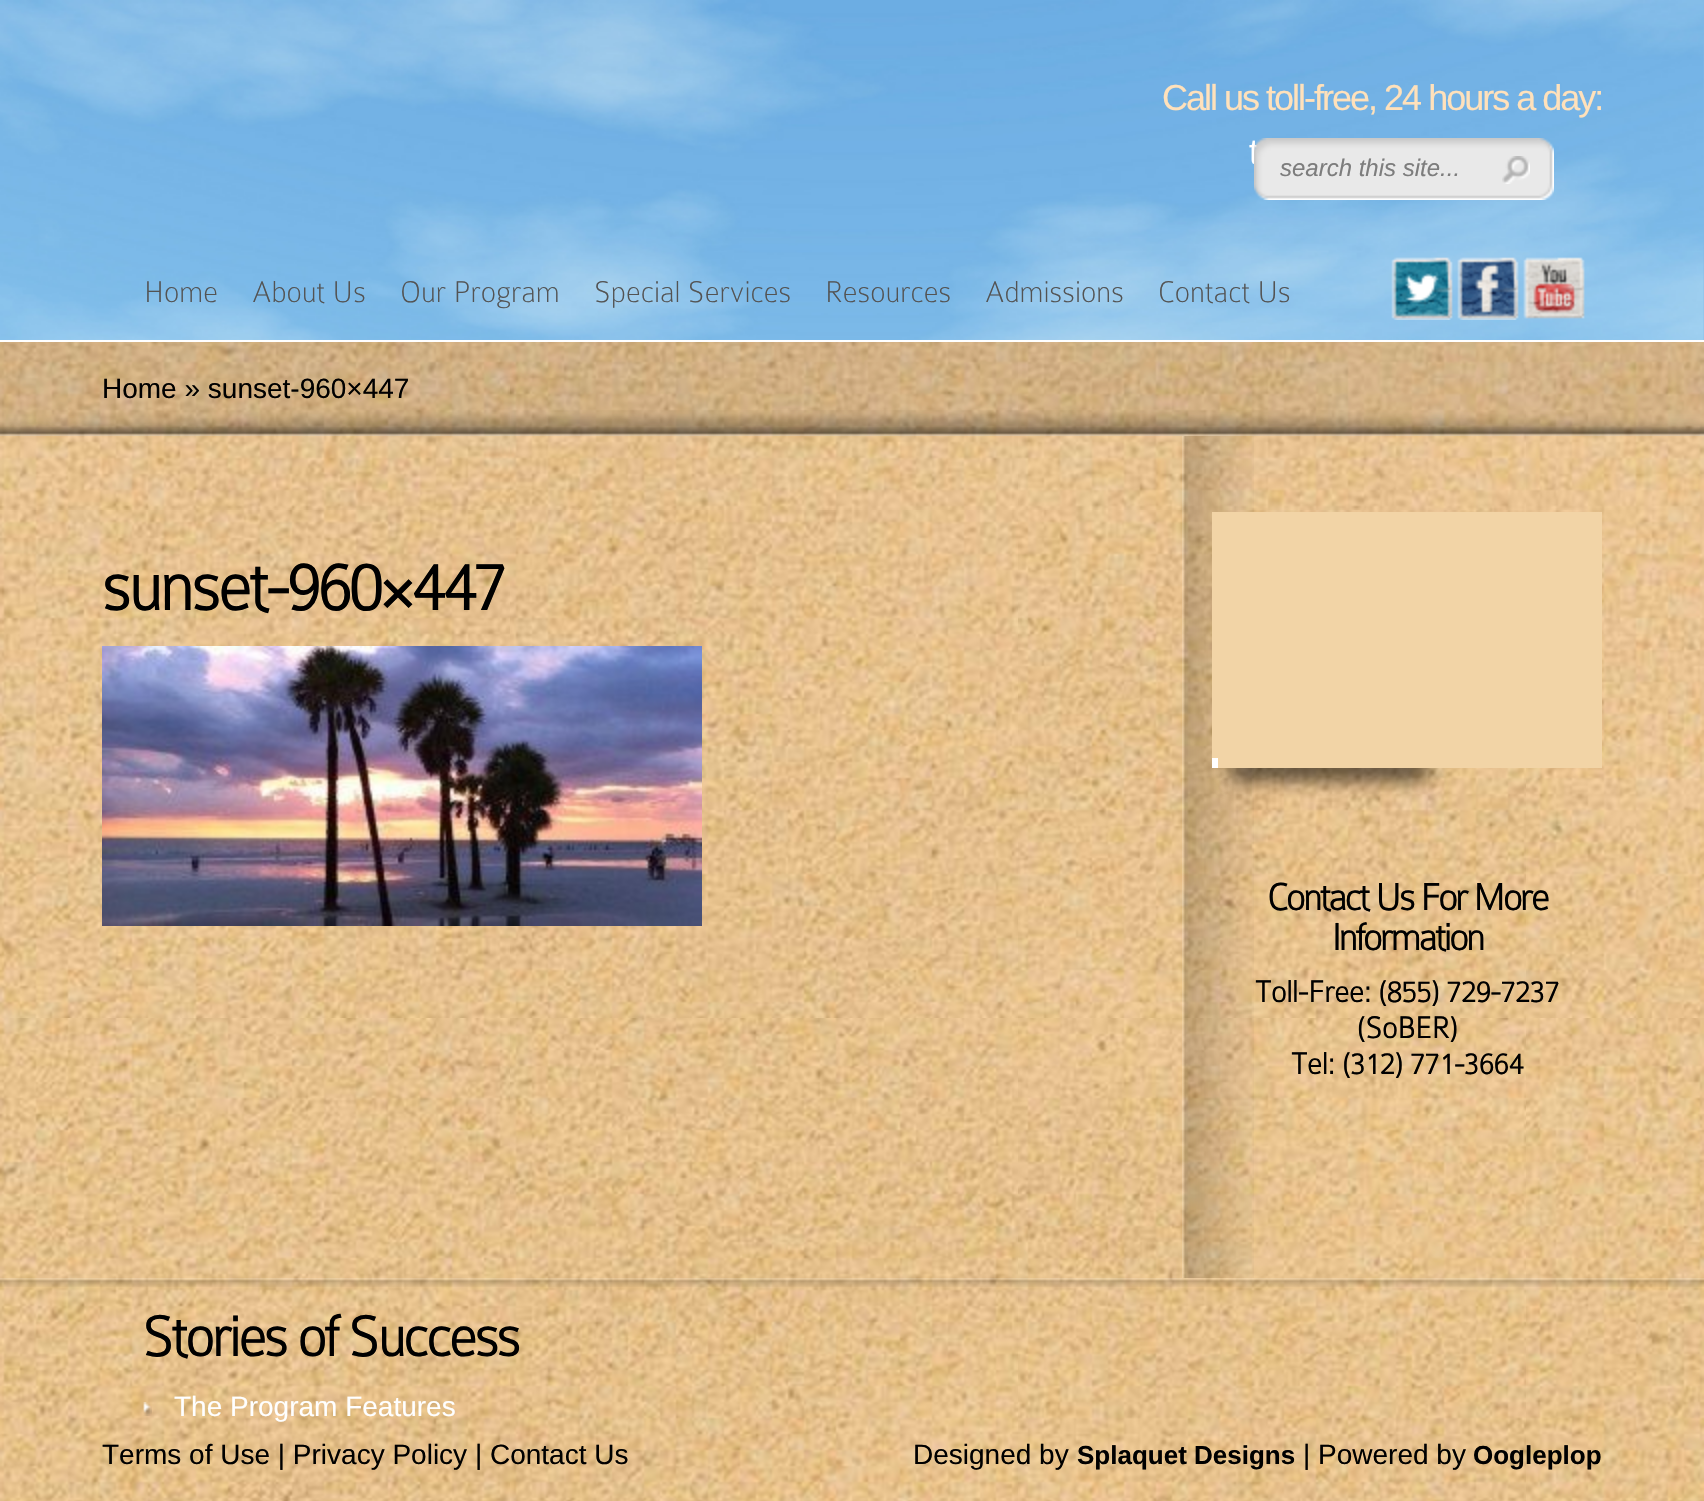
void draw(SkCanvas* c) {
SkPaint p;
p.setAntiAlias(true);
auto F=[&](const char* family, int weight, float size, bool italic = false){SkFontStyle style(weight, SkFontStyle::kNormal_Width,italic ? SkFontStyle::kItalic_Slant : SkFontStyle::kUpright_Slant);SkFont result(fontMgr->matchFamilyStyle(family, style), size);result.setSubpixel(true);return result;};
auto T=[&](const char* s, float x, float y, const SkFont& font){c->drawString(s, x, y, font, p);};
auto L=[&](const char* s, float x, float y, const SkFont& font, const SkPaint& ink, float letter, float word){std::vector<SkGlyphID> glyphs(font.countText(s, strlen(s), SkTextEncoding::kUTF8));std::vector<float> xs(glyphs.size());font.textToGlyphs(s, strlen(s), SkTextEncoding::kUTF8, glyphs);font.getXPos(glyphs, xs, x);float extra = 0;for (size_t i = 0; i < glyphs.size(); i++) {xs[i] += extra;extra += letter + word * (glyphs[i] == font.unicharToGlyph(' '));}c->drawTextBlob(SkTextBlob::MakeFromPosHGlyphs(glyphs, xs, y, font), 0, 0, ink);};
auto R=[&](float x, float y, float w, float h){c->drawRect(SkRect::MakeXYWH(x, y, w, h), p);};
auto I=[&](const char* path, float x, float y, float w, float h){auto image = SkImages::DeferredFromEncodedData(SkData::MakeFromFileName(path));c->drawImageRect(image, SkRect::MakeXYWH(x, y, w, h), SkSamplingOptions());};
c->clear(0xffffffff);
I("1.png",0,342,1704,1159);
p.setColor(0xff7bb9e8);
R(1703,0,1,340);
I("2.png",0,0,1704,340);
auto f1 = F("Liberation Sans",400,36);
p.setColor(0xffffe1bb);
L("Call us toll-free, 24 hours a day:",1162,110,f1,p,-2,0);
p.setColor(0xffffffff);
L("t",1249,164,f1,p,-2,0);
I("3.png",1254,138,300,62);
auto f2 = F("Liberation Sans",400,24,true);
p.setColor(0xff7d7d7d);
T("search this site...",1280,176,f2);
I("4.png",1502,156,28,28);
auto f3 = F("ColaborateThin",100,32);
p.setColor(0xff535353);
T("Home",144,302,f3);
T("About Us",252,302,f3);
T("Our Program",400,302,f3);
T("Special Services",594,302,f3);
T("Resources",825,302,f3);
T("Admissions",985,302,f3);
T("Contact Us",1158,302,f3);
I("5.png",1391,257,62,63);
I("6.png",1457,257,62,63);
I("7.png",1523,257,62,62);
I("8.png",0,427,1704,9);
I("9.png",0,410,1704,26);
p.setColor(0x17000000);
R(0,342,1704,94);
auto f4 = F("Liberation Sans",400,28);
p.setColor(0xff000000);
T("Home » sunset-960×447",102,398,f4);
I("10.png",1182,436,72,842);
auto f5 = F("ColaborateThin",700,72);
L("sunset-960×447",102,610,f5,p,-2,0);
I("11.png",102,646,600,280);
p.setColor(0xcc000000);
p.setMaskFilter(SkMaskFilter::MakeBlur(kNormal_SkBlurStyle, 10));
c->drawRect(SkRect::MakeXYWH(1232,760,196,18),p);
p.setMaskFilter(nullptr);
p.setColor(0xfff2d4a6);
R(1212,512,390,256);
p.setColor(0xffffffff);
R(1212,758,6,10);
auto f6 = F("ColaborateThin",700,40);
p.setColor(0xff000000);
L("Contact Us For More",1267,910,f6,p,-2,0);
L("Information",1332,950,f6,p,-2,0);
auto f7 = F("ColaborateThin",700,32);
T("Toll-Free: (855) 729-7237",1255,1002,f7);
T("(SoBER)",1357,1038,f7);
T("Tel: (312) 771-3664",1291,1074,f7);
I("12.png",0,1278,1704,9);
auto f8 = F("ColaborateThin",700,60);
L("Stories of Success",142,1356,f8,p,-2,0);
I("13.png",143,1402,9,14);
p.setColor(0xffffffff);
T("The Program Features",174,1416,f4);
p.setColor(0xff000000);
T("Terms of Use | Privacy Policy | Contact Us",102,1464,f4);
T("Designed by",913,1464,f4);
auto f9 = F("Liberation Sans",700,26);
T("Splaquet Designs",1077,1464,f9);
T("| Powered by",1303,1464,f4);
T("Oogleplop",1473,1464,f9);
}
